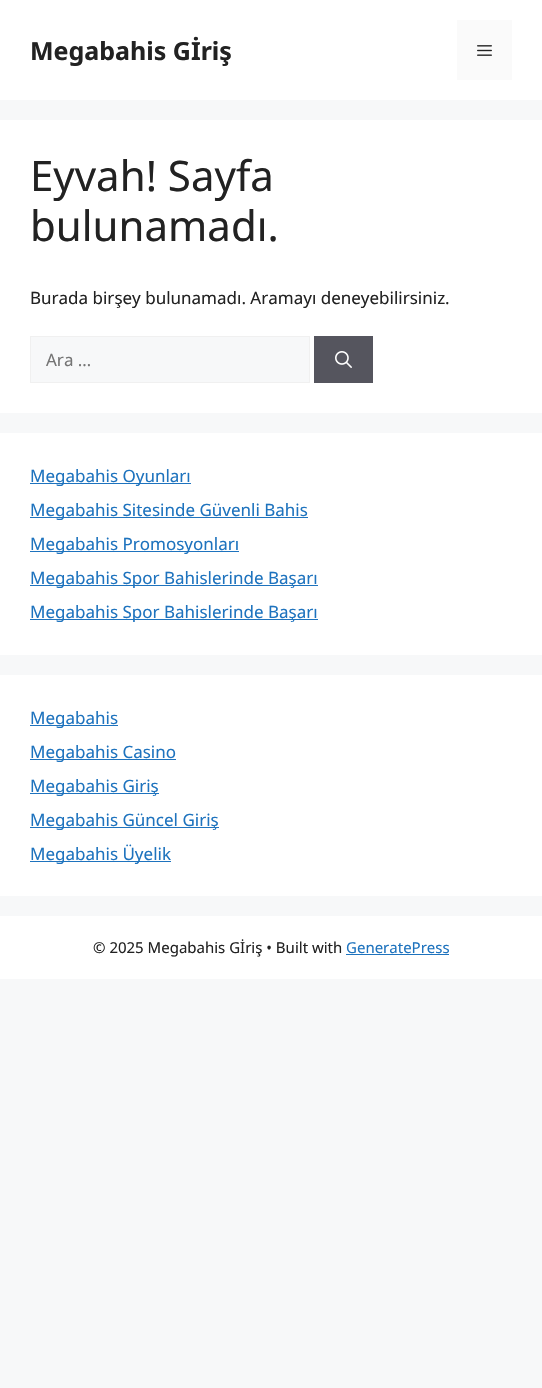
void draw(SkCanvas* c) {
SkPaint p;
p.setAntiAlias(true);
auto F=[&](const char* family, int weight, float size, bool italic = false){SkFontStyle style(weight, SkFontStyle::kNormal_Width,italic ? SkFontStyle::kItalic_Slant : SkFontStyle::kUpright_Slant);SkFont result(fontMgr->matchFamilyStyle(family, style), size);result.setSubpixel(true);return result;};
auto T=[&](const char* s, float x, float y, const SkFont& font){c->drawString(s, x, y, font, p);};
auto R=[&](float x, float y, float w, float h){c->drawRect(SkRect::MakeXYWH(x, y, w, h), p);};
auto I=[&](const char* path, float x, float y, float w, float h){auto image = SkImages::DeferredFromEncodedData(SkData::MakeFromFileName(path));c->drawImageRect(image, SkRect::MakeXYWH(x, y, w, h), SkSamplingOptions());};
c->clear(0xfff7f8f9);
p.setColor(0xffffffff);
R(0,0,542,100);
auto f1 = F("Noto Sans",700,25);
p.setColor(0xff222222);
T("Megabahis Gİriş",30,60,f1);
p.setColor(0xfffafafa);
R(457,20,55,60);
I("1.png",477,45,15,11);
p.setColor(0xffffffff);
R(0,120,542,293);
auto f2 = F("Noto Sans",400,42);
p.setColor(0xff222222);
T("Eyvah! Sayfa",30,191,f2);
T("bulunamadı.",30,241,f2);
auto f3 = F("Noto Sans",400,17);
T("Burada birşey bulunamadı. Aramayı deneyebilirsiniz.",30,304,f3);
p.setColor(0xfff7f8f9);
c->drawRect(SkRect::MakeXYWH(30.5,336.5,279,46),p);
p.setStroke(true);
p.setStrokeWidth(1);
p.setColor(0xfff0f0f0);
c->drawRect(SkRect::MakeXYWH(30.5,336.5,279,46),p);
p.setStroke(false);
p.setColor(0xff757575);
T("Ara …",46,366,f3);
p.setColor(0xff55555e);
R(314,336,59,47);
I("2.png",335,351,17,17);
p.setColor(0xffffffff);
R(0,433,542,222);
p.setColor(0xff1e73be);
R(30,483,161,1);
T("Megabahis Oyunları",30,482,f3);
R(30,517,278,1);
T("Megabahis Sitesinde Güvenli Bahis",30,516,f3);
R(30,551,209,1);
T("Megabahis Promosyonları",30,550,f3);
R(30,585,288,1);
T("Megabahis Spor Bahislerinde Başarı",30,584,f3);
R(30,619,288,1);
T("Megabahis Spor Bahislerinde Başarı",30,618,f3);
p.setColor(0xffffffff);
R(0,675,542,221);
p.setColor(0xff1e73be);
R(30,725,88,1);
T("Megabahis",30,724,f3);
R(30,759,146,1);
T("Megabahis Casino",30,758,f3);
R(30,793,129,1);
T("Megabahis Giriş",30,792,f3);
R(30,827,189,1);
T("Megabahis Güncel Giriş",30,826,f3);
R(30,861,141,1);
T("Megabahis Üyelik",30,860,f3);
p.setColor(0xffffffff);
R(0,916,542,63);
auto f4 = F("Noto Sans",400,15);
p.setColor(0xff222222);
T("© 2025 Megabahis Gİriş • Built with",93,953,f4);
p.setColor(0xff1e73be);
T("GeneratePress",346,953,f4);
R(346,954,103,1);
}
